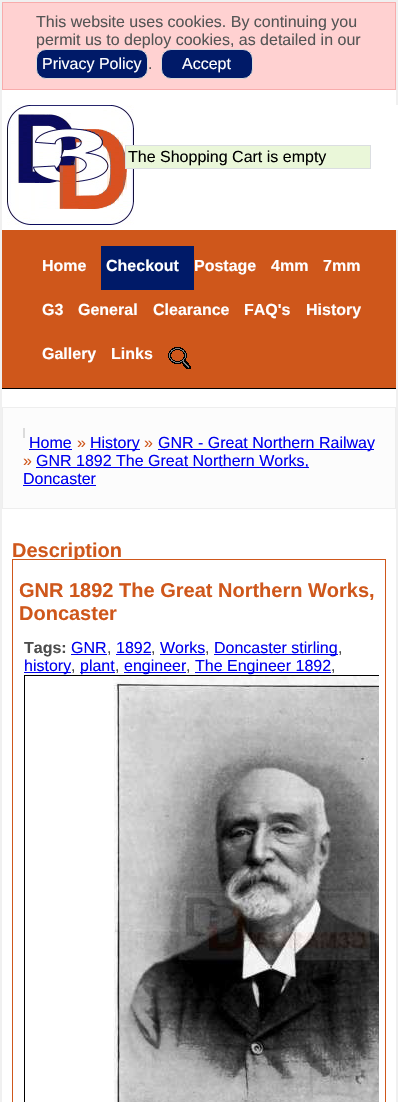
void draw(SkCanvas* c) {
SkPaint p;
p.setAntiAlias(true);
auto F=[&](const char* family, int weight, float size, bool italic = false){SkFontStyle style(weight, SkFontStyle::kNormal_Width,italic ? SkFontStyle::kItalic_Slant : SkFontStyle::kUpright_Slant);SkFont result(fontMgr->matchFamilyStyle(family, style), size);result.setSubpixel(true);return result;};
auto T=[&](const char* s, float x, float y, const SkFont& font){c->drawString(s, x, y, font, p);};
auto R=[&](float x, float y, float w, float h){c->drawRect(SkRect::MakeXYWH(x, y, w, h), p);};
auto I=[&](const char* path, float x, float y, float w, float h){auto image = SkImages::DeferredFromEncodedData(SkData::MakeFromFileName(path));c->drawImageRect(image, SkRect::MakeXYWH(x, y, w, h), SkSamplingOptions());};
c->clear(0xfff0f0f0);
p.setColor(0xffffffff);
R(2,90,394,1012);
p.setColor(0xffffd1d1);
c->drawRect(SkRect::MakeXYWH(2.5,2.5,393,87),p);
p.setStroke(true);
p.setStrokeWidth(1);
p.setColor(0xfff8acac);
c->drawRect(SkRect::MakeXYWH(2.5,2.5,393,87),p);
auto f1 = F("Liberation Sans",400,16);
p.setStroke(false);
p.setColor(0xff555555);
T("This website uses cookies. By continuing you",36,27,f1);
T("permit us to deploy cookies, as detailed in our",36,45,f1);
p.setColor(0xff001a68);
c->drawRoundRect(SkRect::MakeXYWH(36.5,49.5,111,29),9.5,9.5,p);
p.setStroke(true);
p.setColor(0xffdbdbdb);
c->drawRoundRect(SkRect::MakeXYWH(36.5,49.5,111,29),9.5,9.5,p);
p.setStroke(false);
p.setColor(0xffffffff);
T("Privacy Policy",42,69,f1);
p.setColor(0xff555555);
T(".",148,69,f1);
p.setColor(0xff001a68);
c->drawRoundRect(SkRect::MakeXYWH(161.5,49.5,91,29),9.5,9.5,p);
p.setStroke(true);
p.setColor(0xffdbdbdb);
c->drawRoundRect(SkRect::MakeXYWH(161.5,49.5,91,29),9.5,9.5,p);
p.setStroke(false);
p.setColor(0xffffffff);
T("Accept",182,69,f1);
R(396,105,2,125);
I("1.png",7,105,127,120);
p.setColor(0xffeaf7d9);
c->drawRect(SkRect::MakeXYWH(125.5,145.5,245,23),p);
p.setStroke(true);
p.setColor(0xffdbdee1);
c->drawRect(SkRect::MakeXYWH(125.5,145.5,245,23),p);
p.setStroke(false);
p.setColor(0xff000000);
T("The Shopping Cart is empty",128,162,f1);
p.setColor(0xffcf571b);
R(2,230,394,158);
p.setColor(0xff000000);
R(2,388,394,1);
auto f2 = F("Liberation Sans",700,16);
p.setColor(0xffffffff);
T("Home",42,271,f2);
p.setColor(0xff001a68);
R(101,246,93,44);
p.setColor(0xffffffff);
T("Checkout",106,271,f2);
T("Postage",194,271,f2);
T("4mm",271,271,f2);
T("7mm",323,271,f2);
T("G3",42,315,f2);
T("General",78,315,f2);
T("Clearance",153,315,f2);
T("FAQ's",244,315,f2);
T("History",306,315,f2);
T("Gallery",42,359,f2);
T("Links",111,359,f2);
I("2.png",168,347,23,22);
p.setColor(0xfffcfcfc);
c->drawRect(SkRect::MakeXYWH(2.5,407.5,393,101),p);
p.setStroke(true);
p.setColor(0xffeeeeee);
c->drawRect(SkRect::MakeXYWH(2.5,407.5,393,101),p);
p.setStroke(false);
p.setColor(0xffdbdbdb);
R(23,428,2,10);
p.setColor(0xff0000ee);
T("Home",29,448,f1);
R(29,449,43,1);
p.setColor(0xffcf571b);
T("»",77,448,f1);
p.setColor(0xff0000ee);
R(90,449,50,1);
T("History",90,448,f1);
p.setColor(0xffcf571b);
T("»",144,448,f1);
p.setColor(0xff0000ee);
R(158,449,216,1);
T("GNR - Great Northern Railway",158,448,f1);
p.setColor(0xffcf571b);
T("»",23,466,f1);
p.setColor(0xff0000ee);
R(36,467,273,1);
T("GNR 1892 The Great Northern Works,",36,466,f1);
T("Doncaster",23,484,f1);
R(23,485,73,1);
p.setColor(0xffcf571b);
R(12,559,374,1);
auto f3 = F("Liberation Sans",700,20);
T("Description",12,557,f3);
p.setColor(0xffffffff);
R(74,560,4,2);
p.setColor(0xffcf571b);
R(385,560,1,542);
R(12,560,1,542);
T("GNR 1892 The Great Northern Works,",19,597,f3);
T("Doncaster",19,620,f3);
p.setColor(0xff4d4d4d);
T("Tags:",24,653,f2);
p.setColor(0xff0000ee);
T("GNR",71,653,f1);
R(71,654,36,1);
p.setColor(0xff4d4d4d);
T(",",107,653,f1);
p.setColor(0xff0000ee);
T("1892",116,653,f1);
R(116,654,35,1);
p.setColor(0xff4d4d4d);
T(",",151,653,f1);
p.setColor(0xff0000ee);
T("Works",160,653,f1);
R(160,654,45,1);
p.setColor(0xff4d4d4d);
T(",",205,653,f1);
p.setColor(0xff0000ee);
R(214,654,124,1);
T("Doncaster stirling",214,653,f1);
p.setColor(0xff4d4d4d);
T(",",338,653,f1);
p.setColor(0xff0000ee);
R(24,672,47,1);
T("history",24,671,f1);
p.setColor(0xff4d4d4d);
T(",",71,671,f1);
p.setColor(0xff0000ee);
R(80,672,35,1);
T("plant",80,671,f1);
p.setColor(0xff4d4d4d);
T(",",115,671,f1);
p.setColor(0xff0000ee);
R(124,672,62,1);
T("engineer",124,671,f1);
p.setColor(0xff4d4d4d);
T(",",186,671,f1);
p.setColor(0xff0000ee);
R(195,672,136,1);
T("The Engineer 1892",195,671,f1);
p.setColor(0xff4d4d4d);
T(",",331,671,f1);
c->save();
c->clipRect(SkRect::MakeXYWH(19,639,360,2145));
p.setStroke(true);
p.setColor(0xff000000);
c->drawRect(SkRect::MakeXYWH(24.5,675.5,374,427),p);
c->restore();
I("3.png",113,676,266,426);
}
